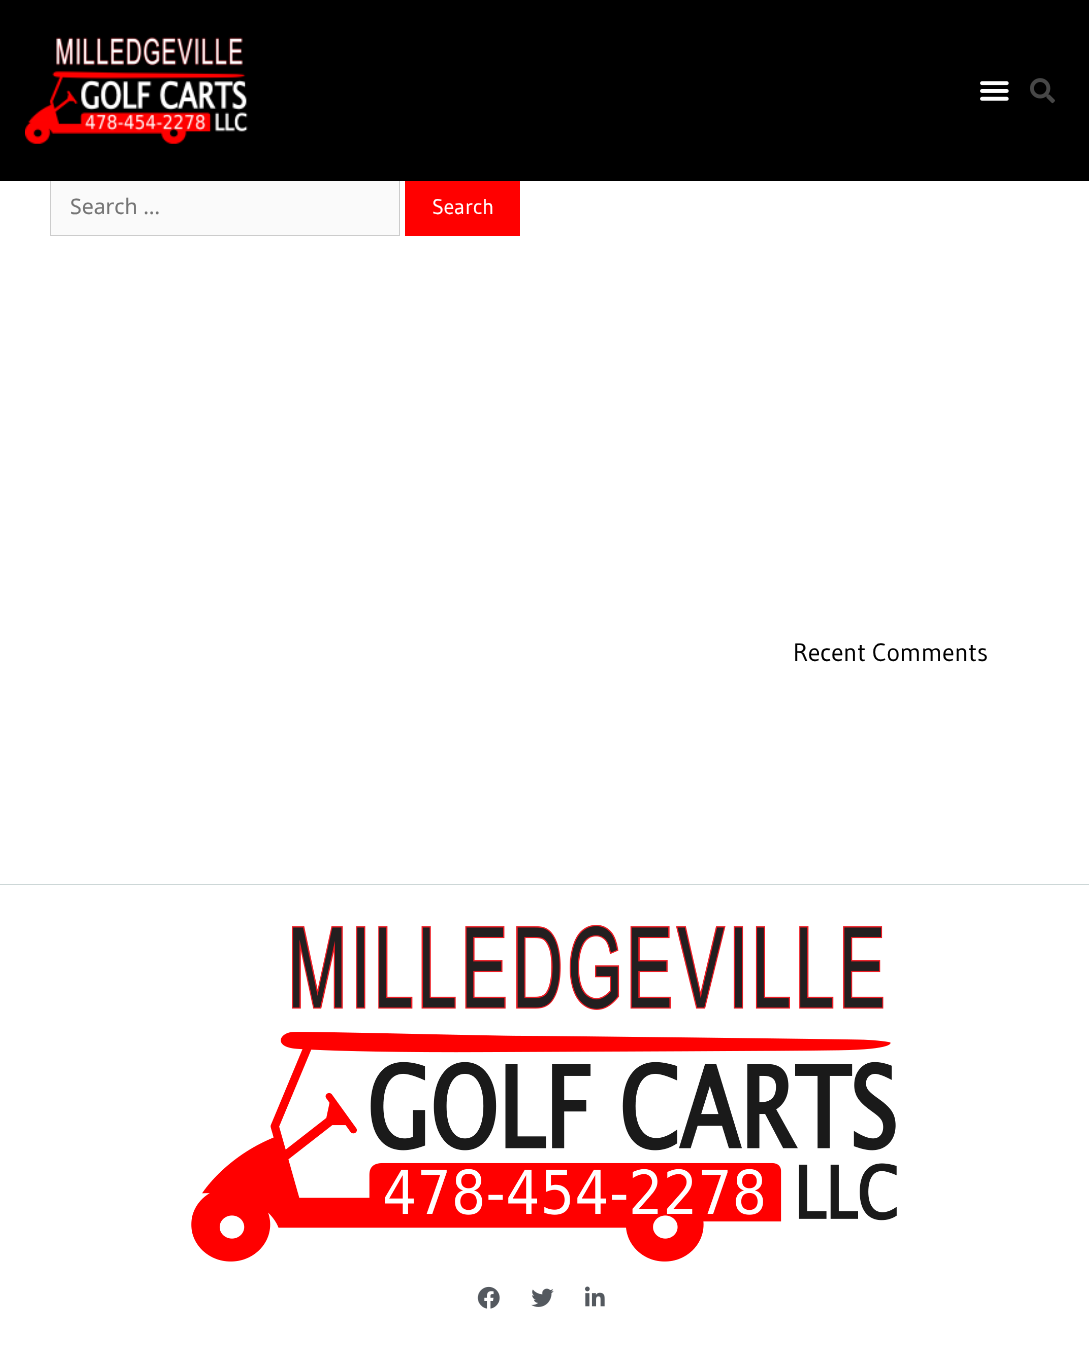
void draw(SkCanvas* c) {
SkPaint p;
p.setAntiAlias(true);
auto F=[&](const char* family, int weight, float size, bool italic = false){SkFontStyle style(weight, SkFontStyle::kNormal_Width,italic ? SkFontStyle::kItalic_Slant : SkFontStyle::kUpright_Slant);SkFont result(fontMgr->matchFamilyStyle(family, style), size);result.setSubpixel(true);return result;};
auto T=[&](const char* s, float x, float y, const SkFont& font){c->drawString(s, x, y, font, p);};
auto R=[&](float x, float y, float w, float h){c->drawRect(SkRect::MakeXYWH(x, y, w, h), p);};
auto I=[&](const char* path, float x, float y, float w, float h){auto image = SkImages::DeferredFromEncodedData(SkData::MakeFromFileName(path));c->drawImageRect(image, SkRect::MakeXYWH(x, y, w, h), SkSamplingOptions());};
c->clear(0xffffffff);
p.setColor(0xfffafafa);
R(51,181,348,54);
p.setStroke(true);
p.setStrokeWidth(1);
p.setColor(0xffcccccc);
c->drawRect(SkRect::MakeXYWH(50.5,176.5,349,59),p);
p.setStroke(false);
p.setColor(0xff000000);
R(0,0,1089,181);
I("1.png",25,37,223,107);
I("2.png",980,81,29,20);
I("3.png",1030,78,25,26);
auto f1 = F("Noto Sans",400,21.25);
p.setColor(0xff757575);
T("Search …",70,214,f1);
p.setColor(0xffff0000);
R(405,181,115,55);
auto f2 = F("Gudea",400,21.25);
p.setColor(0xffffffff);
T("Search",432,214,f2);
auto f3 = F("Gudea",400,25);
p.setColor(0xff000000);
T("Recent Comments",793,661,f3);
p.setColor(0xffcdd7d7);
R(0,884,1089,1);
I("4.png",191,925,706,337);
I("5.png",477,1286,23,23);
I("6.png",531,1288,23,19);
I("7.png",585,1286,20,21);
}
